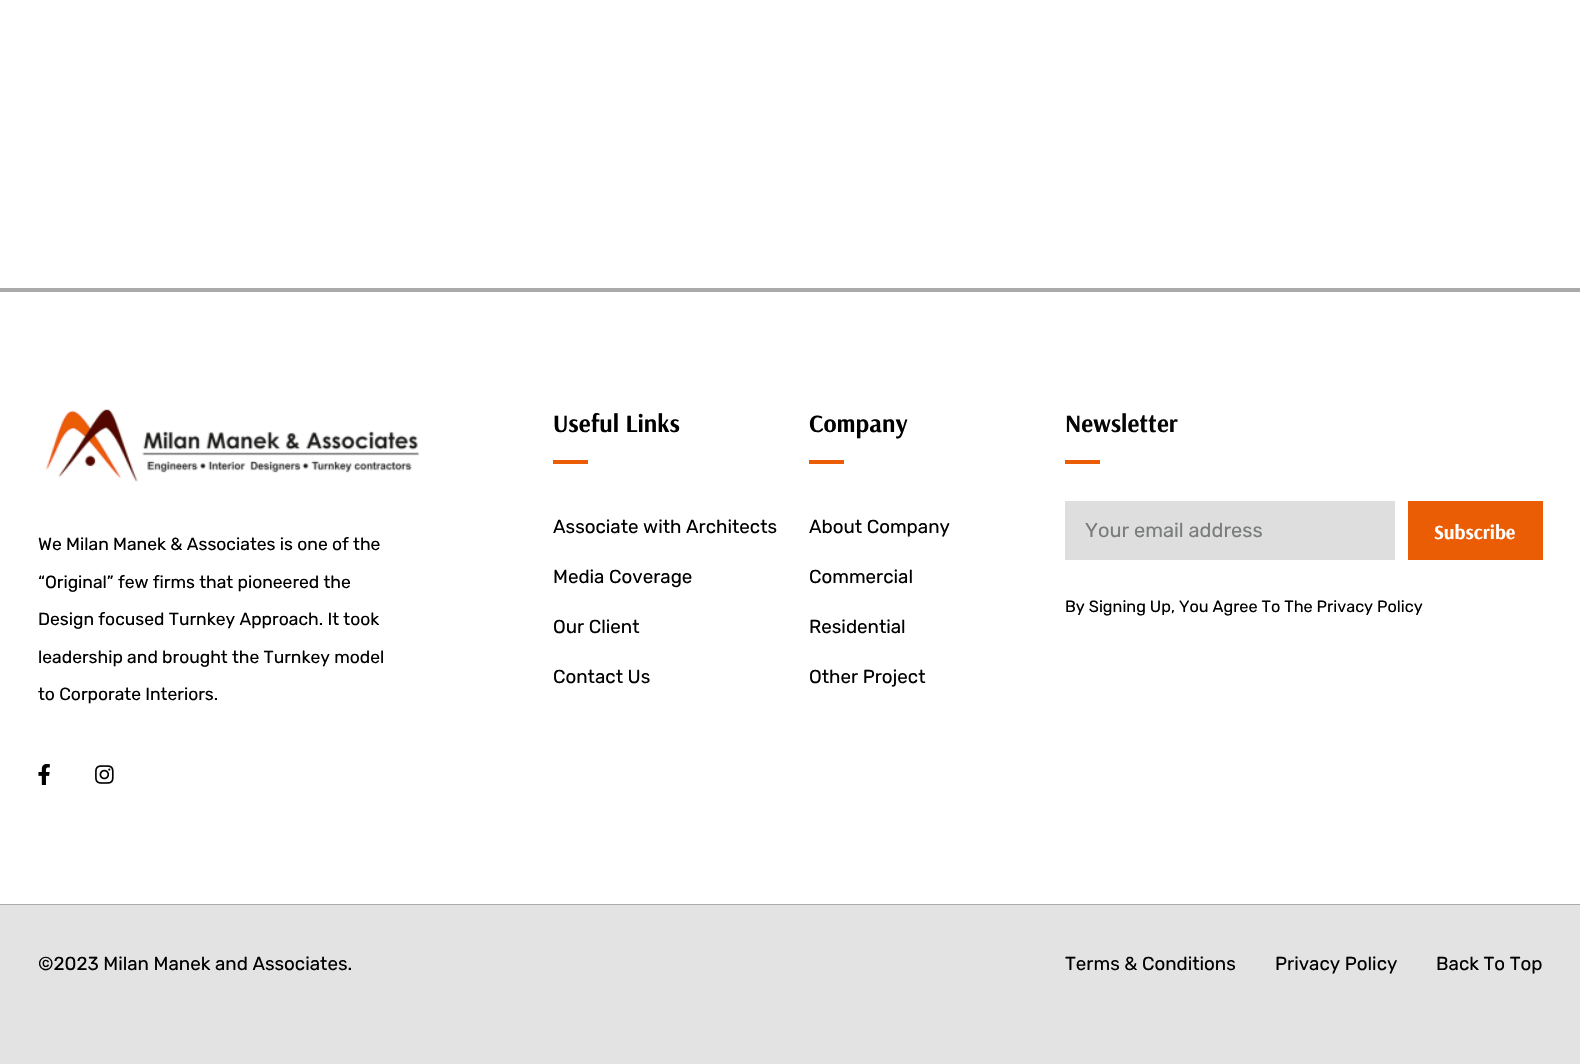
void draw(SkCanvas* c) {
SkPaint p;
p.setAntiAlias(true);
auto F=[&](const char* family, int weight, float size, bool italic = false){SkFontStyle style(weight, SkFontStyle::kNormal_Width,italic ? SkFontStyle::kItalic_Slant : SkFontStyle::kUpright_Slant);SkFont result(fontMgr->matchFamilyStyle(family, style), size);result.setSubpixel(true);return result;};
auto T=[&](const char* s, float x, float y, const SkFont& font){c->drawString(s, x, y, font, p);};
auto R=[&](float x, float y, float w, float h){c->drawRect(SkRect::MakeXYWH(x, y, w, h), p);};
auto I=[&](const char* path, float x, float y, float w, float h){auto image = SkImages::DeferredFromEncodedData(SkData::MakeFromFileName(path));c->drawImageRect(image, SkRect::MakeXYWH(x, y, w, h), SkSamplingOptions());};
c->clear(0xffffffff);
p.setColor(0xffaaaaaa);
R(0,288,1580,4);
I("1.png",46,409,373,73);
auto f1 = F("Rubik",400,17.5);
p.setColor(0xff000000);
T("We Milan Manek & Associates is one of the",38,550,f1);
T("“Original” few firms that pioneered the",38,588,f1);
T("Design focused Turnkey Approach. It took",38,625,f1);
T("leadership and brought the Turnkey model",38,663,f1);
T("to Corporate Interiors.",38,700,f1);
I("2.png",38,764,12,21);
I("3.png",95,765,19,19);
auto f2 = F("Arsenal",700,25);
T("Useful Links",553,432,f2);
p.setColor(0xffeb5d05);
R(553,460,35,4);
auto f3 = F("Rubik",400,18.75);
p.setColor(0xff000000);
T("Associate with Architects",553,533,f3);
T("Media Coverage",553,583,f3);
T("Our Client",553,633,f3);
T("Contact Us",553,683,f3);
T("Company",809,432,f2);
p.setColor(0xffeb5d05);
R(809,460,35,4);
p.setColor(0xff000000);
T("About Company",809,533,f3);
T("Commercial",809,583,f3);
T("Residential",809,633,f3);
T("Other Project",809,683,f3);
p.setColor(0xff060606);
T("Newsletter",1065,432,f2);
p.setColor(0xffeb5d05);
R(1065,460,35,4);
p.setColor(0xffdedede);
R(1065,501,330,59);
auto f4 = F("Rubik",400,20);
p.setColor(0xff7a7c7d);
T("Your email address",1085,537,f4);
p.setColor(0xffeb5d05);
R(1408,501,135,59);
auto f5 = F("Arsenal",700,20);
p.setColor(0xffffffff);
T("Subscribe",1434,539,f5);
auto f6 = F("Rubik",400,16.25);
p.setColor(0xff000000);
T("By Signing Up, You Agree To The Privacy Policy",1065,612,f6);
p.setColor(0xffe3e3e3);
R(0,905,1580,159);
p.setColor(0xffaaaaaa);
R(0,904,1580,1);
p.setColor(0xff000000);
T("©2023 Milan Manek and Associates.",38,970,f3);
T("Terms & Conditions",1065,970,f3);
T("Privacy Policy",1275,970,f3);
T("Back To Top",1436,970,f3);
}
